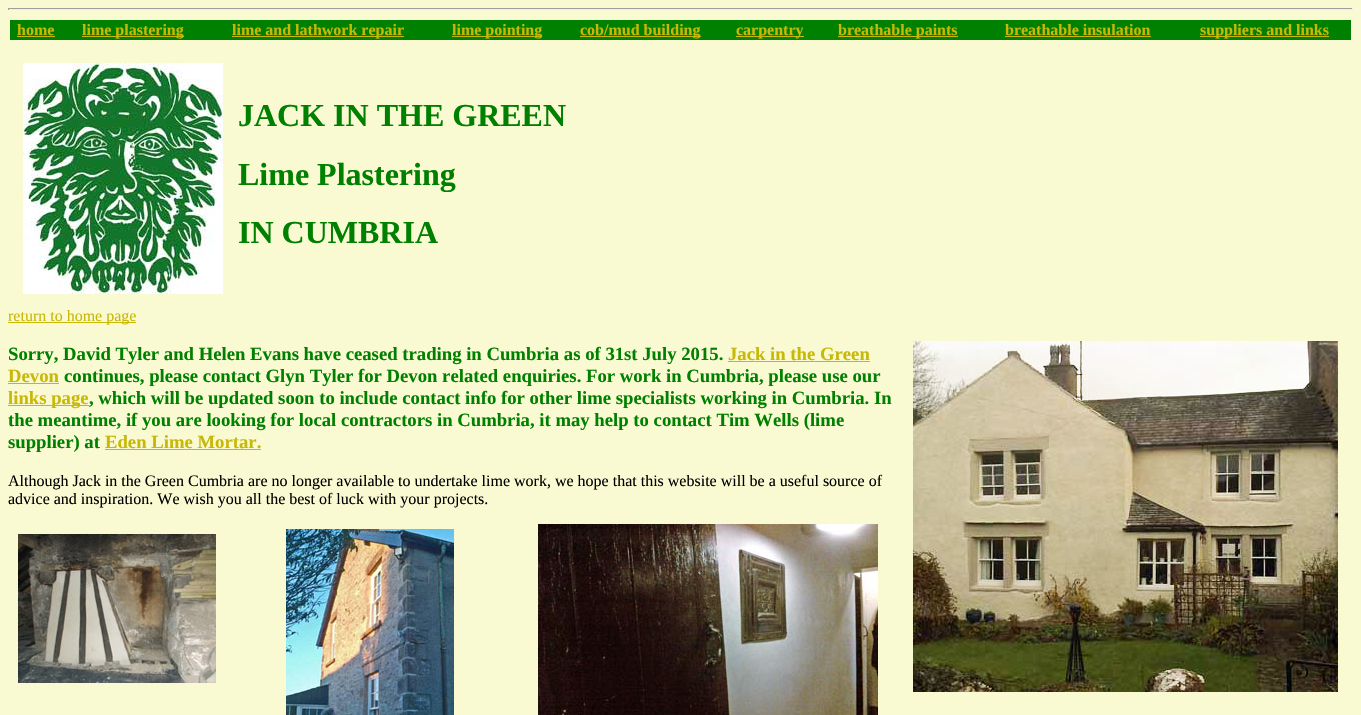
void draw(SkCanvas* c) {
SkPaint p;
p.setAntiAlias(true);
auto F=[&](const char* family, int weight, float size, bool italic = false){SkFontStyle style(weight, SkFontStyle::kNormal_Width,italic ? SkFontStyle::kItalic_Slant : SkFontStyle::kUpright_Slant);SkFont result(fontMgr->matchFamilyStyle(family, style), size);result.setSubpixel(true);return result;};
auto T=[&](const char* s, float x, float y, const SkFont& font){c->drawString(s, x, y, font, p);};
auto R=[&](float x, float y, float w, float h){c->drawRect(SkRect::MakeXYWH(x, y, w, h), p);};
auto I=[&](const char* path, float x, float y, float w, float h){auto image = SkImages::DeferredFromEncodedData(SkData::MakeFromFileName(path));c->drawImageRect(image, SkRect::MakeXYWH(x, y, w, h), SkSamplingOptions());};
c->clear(0xfffafad2);
p.setColor(0xff9f9f9f);
R(8,8,1345,1);
p.setColor(0xffeeeeee);
R(1352,8,1,2);
R(8,9,1345,1);
p.setColor(0xff9f9f9f);
R(8,8,1,2);
p.setColor(0xff008000);
R(10,20,1341,20);
auto f1 = F("Liberation Serif",700,16);
p.setColor(0xffc8b808);
T("home",17,35,f1);
R(17,36,38,1);
R(82,36,102,1);
T("lime plastering",82,35,f1);
R(232,36,172,1);
T("lime and lathwork repair",232,35,f1);
R(452,36,90,1);
T("lime pointing",452,35,f1);
R(580,36,121,1);
T("cob/mud building",580,35,f1);
R(736,36,68,1);
T("carpentry",736,35,f1);
R(838,36,120,1);
T("breathable paints",838,35,f1);
T("breathable insulation",1005,35,f1);
R(1005,36,146,1);
R(1200,36,129,1);
T("suppliers and links",1200,35,f1);
I("1.png",23,63,200,231);
auto f2 = F("Liberation Serif",700,32);
p.setColor(0xff008000);
T("JACK IN THE GREEN",238,126,f2);
T("Lime Plastering",238,185,f2);
T("IN CUMBRIA",238,243,f2);
p.setColor(0xffc8b808);
R(8,322,128,1);
auto f3 = F("Liberation Serif",400,16);
T("return to home page",8,321,f3);
auto f4 = F("Liberation Serif",700,18.7);
p.setColor(0xff008000);
T("Sorry, David Tyler and Helen Evans have ceased trading in Cumbria as of 31st July 2015.",8,360,f4);
p.setColor(0xffc8b808);
T("Jack in the Green",728,360,f4);
R(728,361,142,1);
T("Devon",8,382,f4);
R(8,383,51,1);
p.setColor(0xff008000);
T("continues, please contact Glyn Tyler for Devon related enquiries. For work in Cumbria, please use our",64,382,f4);
p.setColor(0xffc8b808);
R(8,405,81,1);
T("links page",8,404,f4);
p.setColor(0xff008000);
T(", which will be updated soon to include contact info for other lime specialists working in Cumbria. In",89,404,f4);
T("the meantime, if you are looking for local contractors in Cumbria, it may help to contact Tim Wells (lime",8,426,f4);
T("supplier) at",8,448,f4);
p.setColor(0xffc8b808);
T("Eden Lime Mortar.",105,448,f4);
R(105,449,156,1);
I("2.png",913,341,425,351);
p.setColor(0xff000000);
T("Although Jack in the Green Cumbria are no longer available to undertake lime work, we hope that this website will be a useful source of",8,486,f3);
T("advice and inspiration. We wish you all the best of luck with your projects.",8,504,f3);
I("3.png",18,534,198,149);
I("4.png",286,529,168,186);
I("5.png",538,524,340,191);
}
